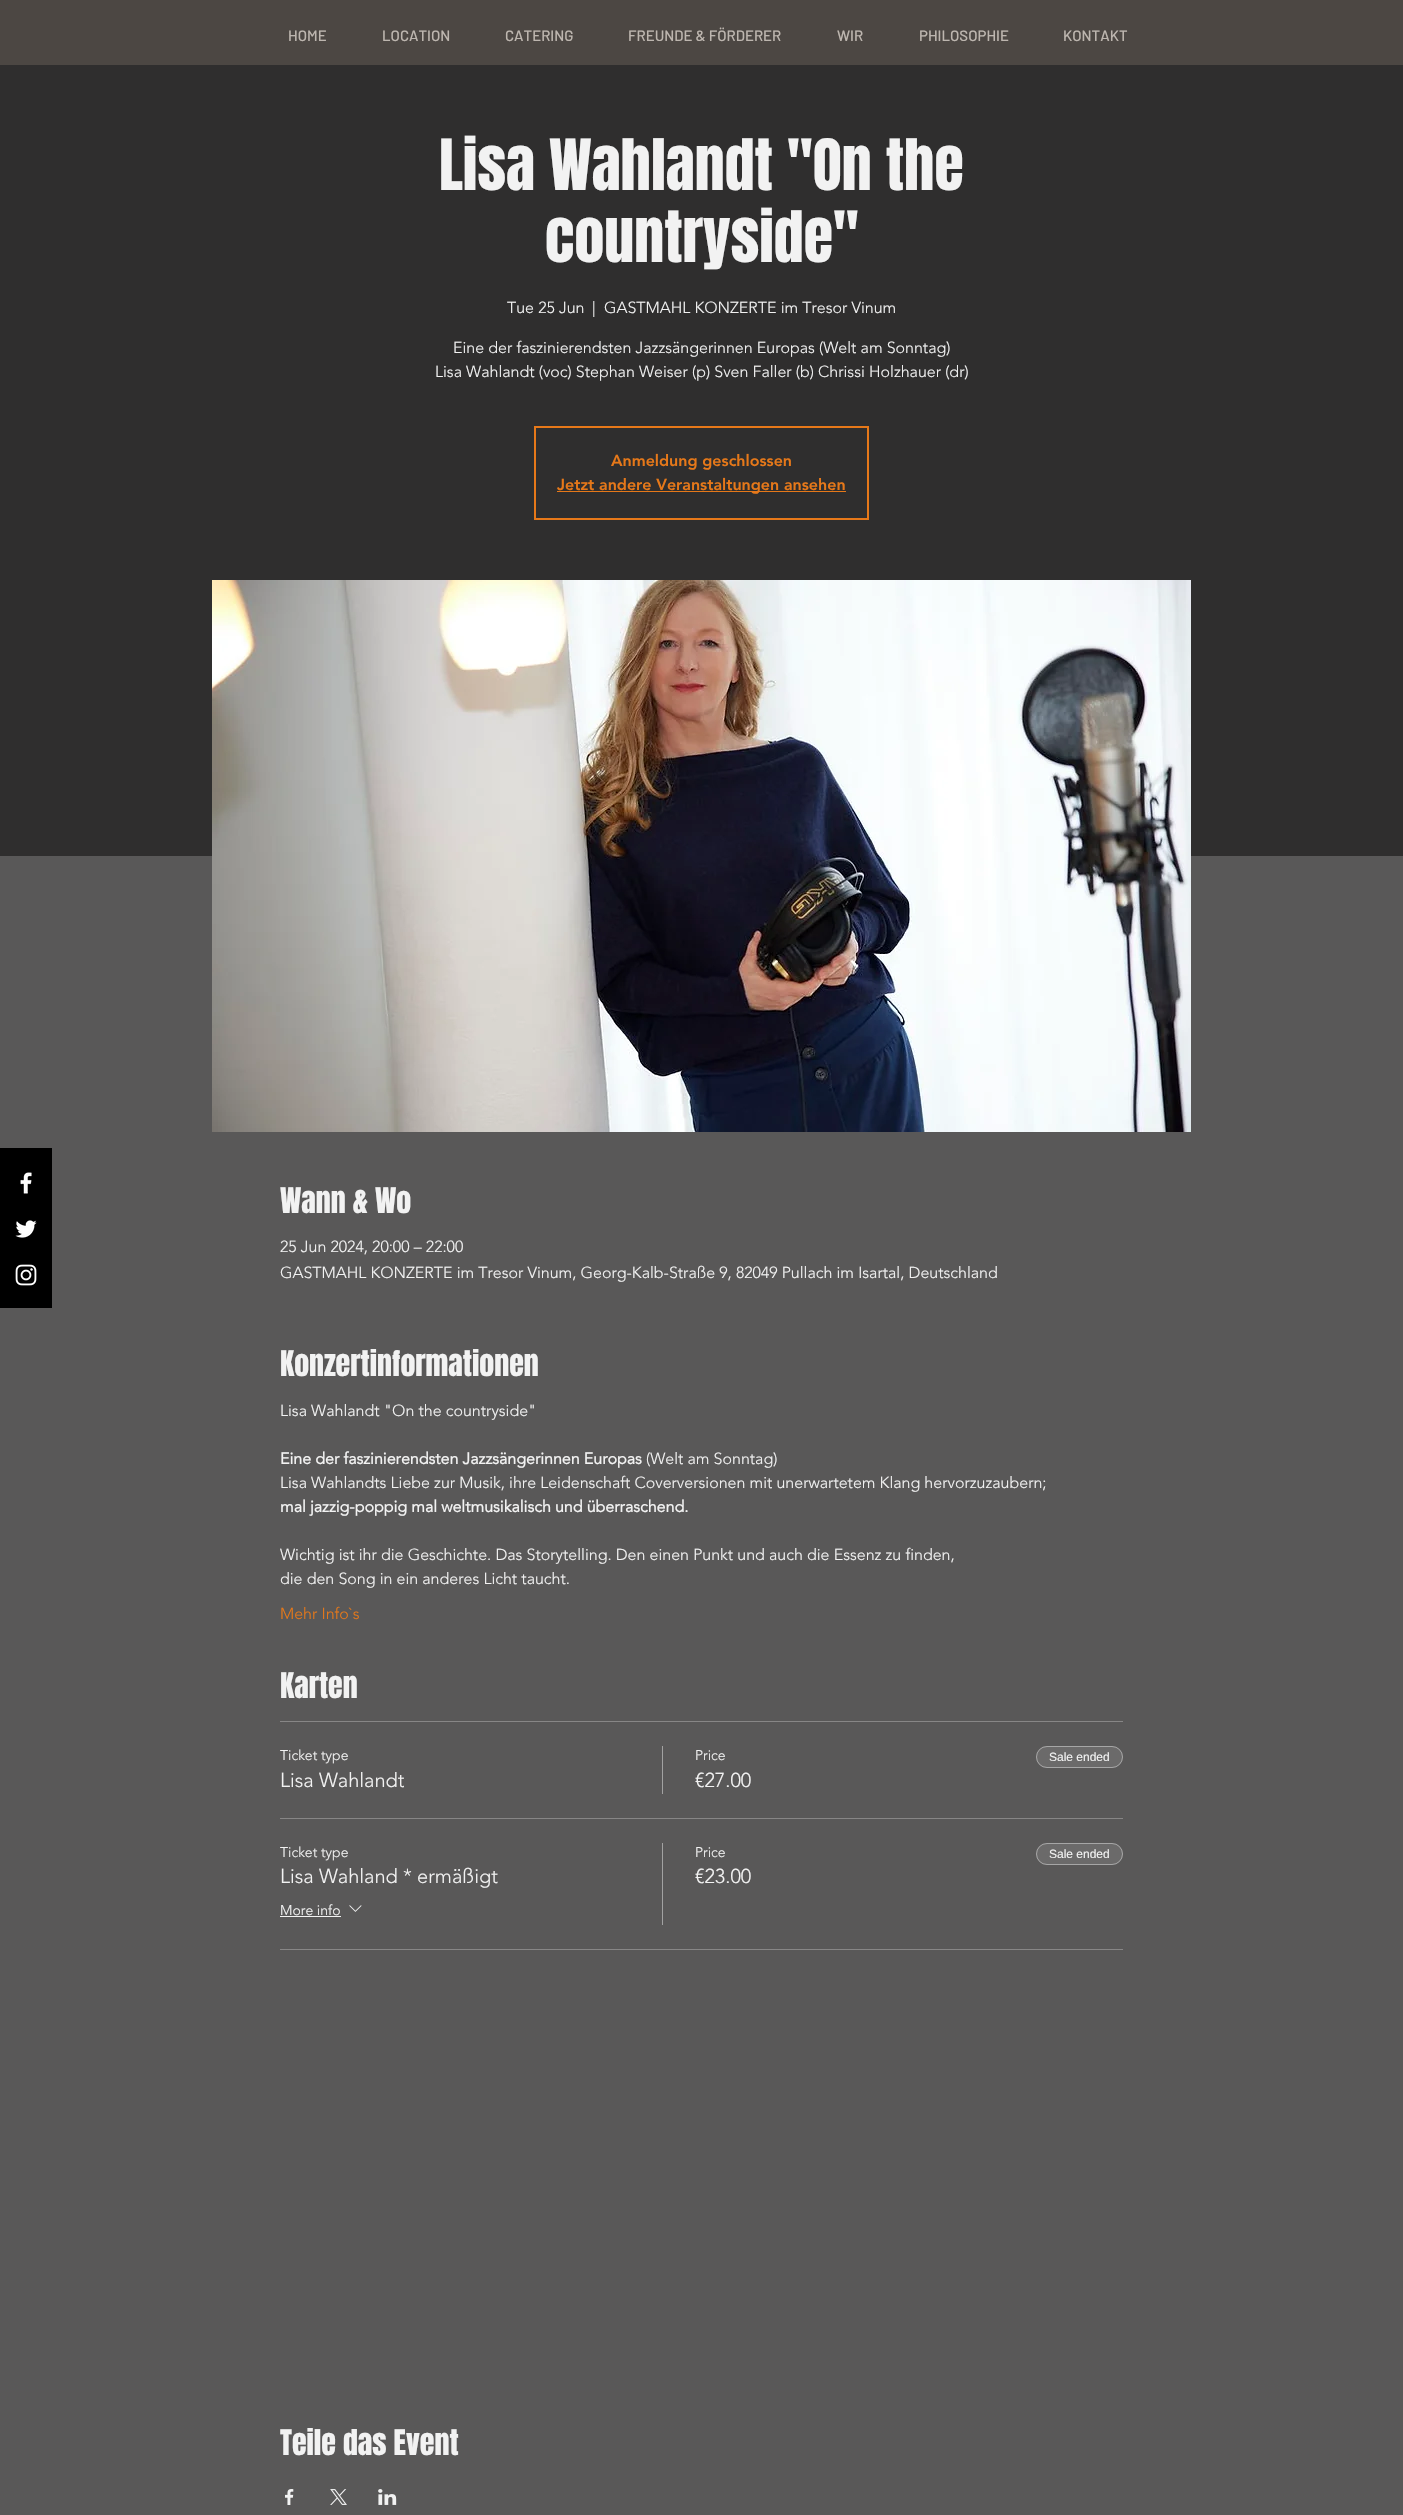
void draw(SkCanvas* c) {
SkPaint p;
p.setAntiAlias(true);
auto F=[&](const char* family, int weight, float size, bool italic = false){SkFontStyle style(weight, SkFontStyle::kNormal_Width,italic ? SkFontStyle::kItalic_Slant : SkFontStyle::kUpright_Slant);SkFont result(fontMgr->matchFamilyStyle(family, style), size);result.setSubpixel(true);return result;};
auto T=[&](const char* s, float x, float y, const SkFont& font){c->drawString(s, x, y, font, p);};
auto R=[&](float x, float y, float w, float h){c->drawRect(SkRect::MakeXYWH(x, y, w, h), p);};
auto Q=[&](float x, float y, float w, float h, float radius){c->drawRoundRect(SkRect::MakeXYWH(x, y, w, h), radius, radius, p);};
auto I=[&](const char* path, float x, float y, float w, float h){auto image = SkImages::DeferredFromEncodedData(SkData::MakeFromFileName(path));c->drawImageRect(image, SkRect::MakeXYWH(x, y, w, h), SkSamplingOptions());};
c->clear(0xff595858);
p.setColor(0xff4c4743);
R(0,0,1403,65);
auto f1 = F("Barlow",500,15);
p.setColor(0xffbdb6af);
T("HOME",288,41,f1);
T("LOCATION",382,41,f1);
T("CATERING",505,41,f1);
T("FREUNDE & FÖRDERER",628,41,f1);
T("WIR",837,41,f1);
T("PHILOSOPHIE",919,41,f1);
T("KONTAKT",1063,41,f1);
p.setColor(0xff000000);
R(0,1148,52,160);
I("1.png",20,1172,12,22);
I("2.png",15,1220,22,18);
I("3.png",15,1264,22,22);
p.setColor(0xff2f2e2e);
R(0,65,1403,791);
auto f2 = F("Anton",400,60);
p.setColor(0xfff2f2f2);
T("Lisa Wahlandt \"On the",439,190,f2);
T("countryside\"",545,262,f2);
auto f3 = F("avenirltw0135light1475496",300,16);
T("Tue 25 Jun",507,313,f3);
T("|",592,313,f3);
T("GASTMAHL KONZERTE im Tresor Vinum",604,313,f3);
T("Eine der faszinierendsten Jazzsängerinnen Europas (Welt am Sonntag)",453,353,f3);
T("Lisa Wahlandt (voc) Stephan Weiser (p) Sven Faller (b) Chrissi Holzhauer (dr)",435,377,f3);
p.setStroke(true);
p.setStrokeWidth(2);
p.setColor(0xffe67819);
c->drawRect(SkRect::MakeXYWH(535,427,333,92),p);
auto f4 = F("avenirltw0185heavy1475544",900,16);
p.setStroke(false);
T("Anmeldung geschlossen",611,466,f4);
R(557,491,289,1);
T("Jetzt andere Veranstaltungen ansehen",557,490,f4);
I("4.png",212,580,979,552);
auto f5 = F("Anton",400,30);
p.setColor(0xfff2f2f2);
T("Wann & Wo",280,1213,f5);
T("25 Jun 2024, 20:00 – 22:00",280,1252,f3);
T("GASTMAHL KONZERTE im Tresor Vinum, Georg-Kalb-Straße 9, 82049 Pullach im Isartal, Deutschland",280,1278,f3);
T("Konzertinformationen",280,1376,f5);
T("Lisa Wahlandt \"On the countryside\"",280,1416,f3);
auto f6 = F("avenirltw0135light1475496",700,16);
T("Eine der faszinierendsten Jazzsängerinnen Europas",280,1464,f6);
T("(Welt am Sonntag)",646,1464,f3);
T("Lisa Wahlandts Liebe zur Musik, ihre Leidenschaft Coverversionen mit unerwartetem Klang hervorzuzaubern;",280,1488,f3);
T("mal jazzig-poppig mal weltmusikalisch und überraschend.",280,1512,f6);
T("Wichtig ist ihr die Geschichte. Das Storytelling. Den einen Punkt und auch die Essenz zu finden,",280,1560,f3);
T("die den Song in ein anderes Licht taucht.",280,1584,f3);
p.setColor(0xffe67819);
T("Mehr Info`s",280,1619,f3);
p.setColor(0xfff2f2f2);
T("Karten",280,1698,f5);
p.setColor(0xff878686);
R(280,1721,843,1);
R(280,1818,843,1);
auto f7 = F("avenirltw0135light1475496",300,14);
p.setColor(0xfff2f2f2);
T("Ticket type",280,1760,f7);
auto f8 = F("avenirltw0135light1475496",300,20);
T("Lisa Wahlandt",280,1787,f8);
p.setColor(0xffa2a2a2);
R(662,1746,1,48);
p.setColor(0xfff2f2f2);
T("Price",695,1760,f7);
T("€27.00",695,1787,f8);
p.setColor(0xff6b6a6a);
Q(1036,1746,87,22,11);
p.setStroke(true);
p.setStrokeWidth(1);
p.setColor(0x66ffffff);
c->drawRoundRect(SkRect::MakeXYWH(1036.5,1746.5,86,21),10.5,10.5,p);
auto f9 = F("Liberation Sans",400,12);
p.setStroke(false);
p.setColor(0xfff2f2f2);
T("Sale ended",1049,1761,f9);
p.setColor(0xff878686);
R(280,1949,843,1);
p.setColor(0xfff2f2f2);
T("Ticket type",280,1857,f7);
T("Lisa Wahland * ermäßigt",280,1883,f8);
T("More info",280,1915,f7);
R(280,1916,61,1);
I("5.png",349,1905,13,7);
p.setColor(0xffa2a2a2);
R(662,1843,1,82);
p.setColor(0xfff2f2f2);
T("Price",695,1857,f7);
T("€23.00",695,1883,f8);
p.setColor(0xff6b6a6a);
Q(1036,1843,87,22,11);
p.setStroke(true);
p.setColor(0x66ffffff);
c->drawRoundRect(SkRect::MakeXYWH(1036.5,1843.5,86,21),10.5,10.5,p);
p.setStroke(false);
p.setColor(0xfff2f2f2);
T("Sale ended",1049,1858,f9);
T("Teile das Event",280,2455,f5);
I("6.png",285,2489,9,16);
I("7.png",330,2489,17,16);
I("8.png",378,2489,19,16);
}
